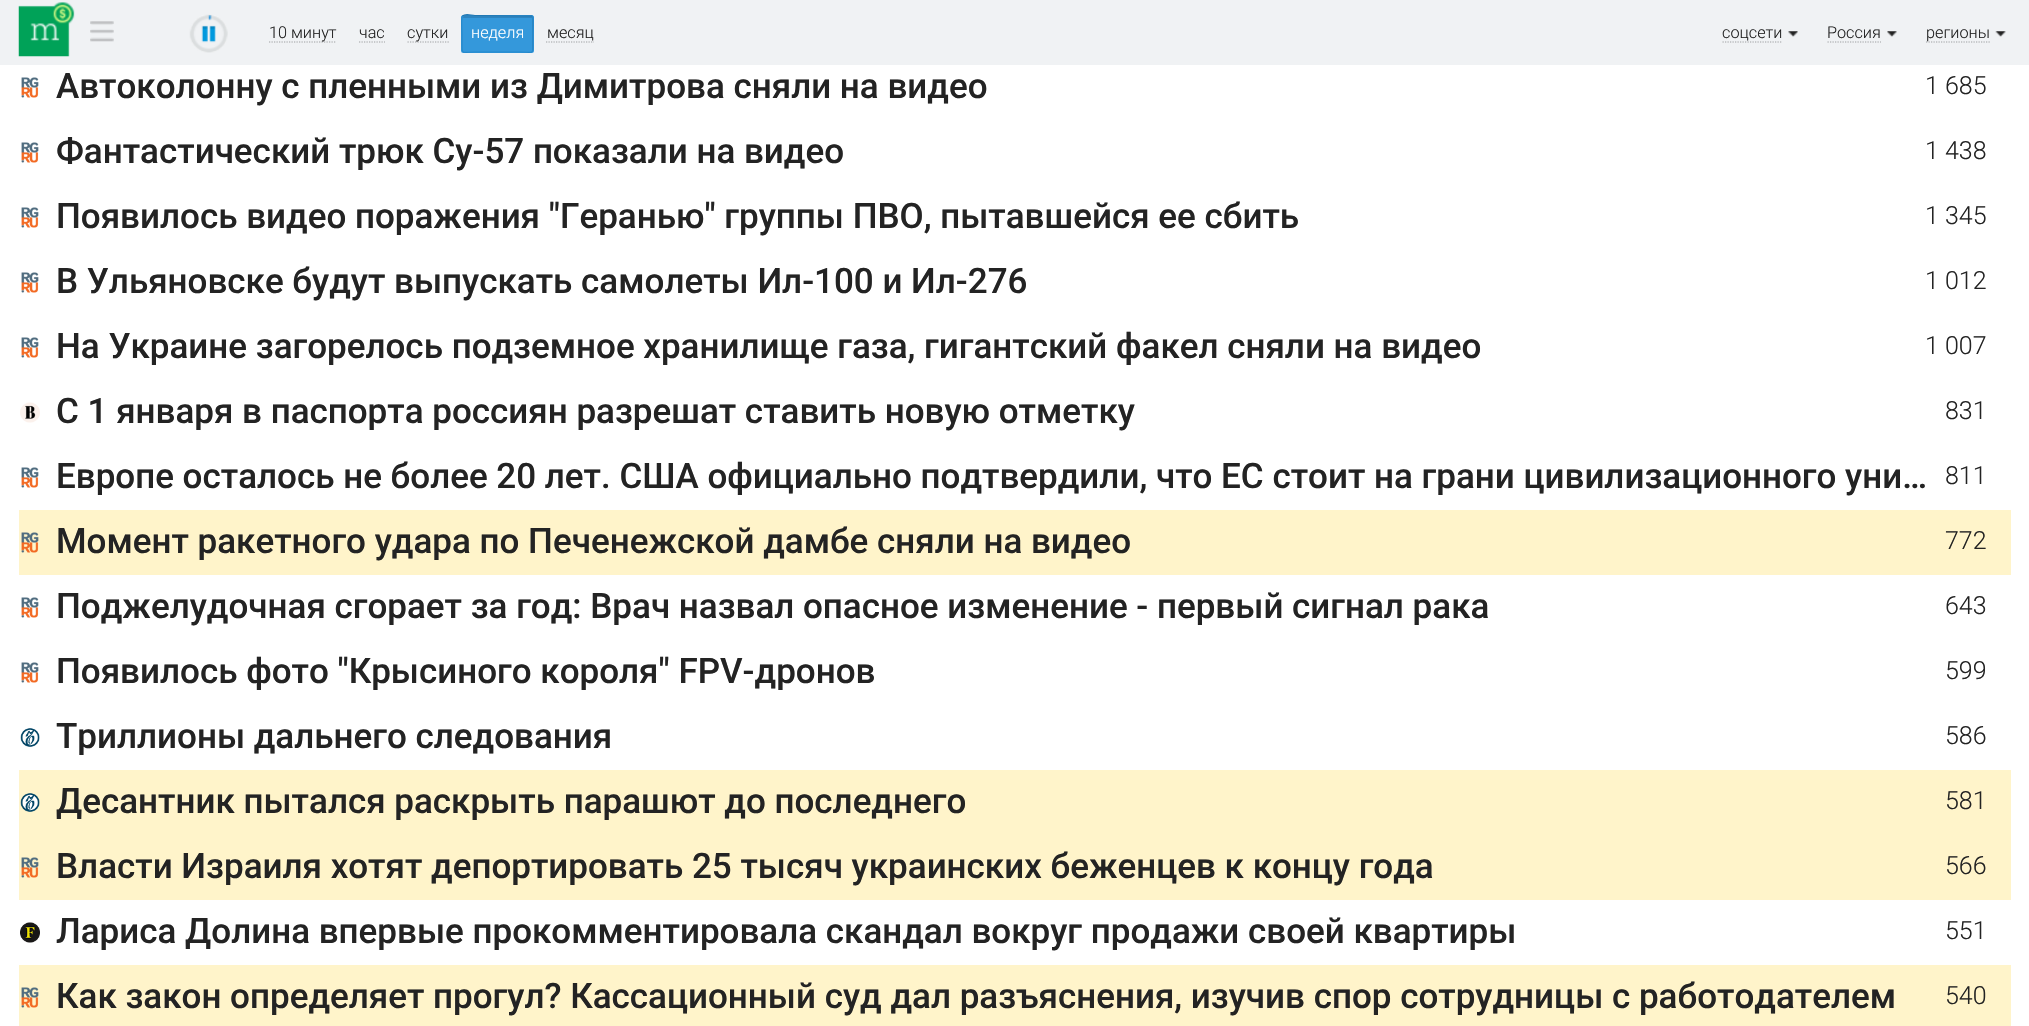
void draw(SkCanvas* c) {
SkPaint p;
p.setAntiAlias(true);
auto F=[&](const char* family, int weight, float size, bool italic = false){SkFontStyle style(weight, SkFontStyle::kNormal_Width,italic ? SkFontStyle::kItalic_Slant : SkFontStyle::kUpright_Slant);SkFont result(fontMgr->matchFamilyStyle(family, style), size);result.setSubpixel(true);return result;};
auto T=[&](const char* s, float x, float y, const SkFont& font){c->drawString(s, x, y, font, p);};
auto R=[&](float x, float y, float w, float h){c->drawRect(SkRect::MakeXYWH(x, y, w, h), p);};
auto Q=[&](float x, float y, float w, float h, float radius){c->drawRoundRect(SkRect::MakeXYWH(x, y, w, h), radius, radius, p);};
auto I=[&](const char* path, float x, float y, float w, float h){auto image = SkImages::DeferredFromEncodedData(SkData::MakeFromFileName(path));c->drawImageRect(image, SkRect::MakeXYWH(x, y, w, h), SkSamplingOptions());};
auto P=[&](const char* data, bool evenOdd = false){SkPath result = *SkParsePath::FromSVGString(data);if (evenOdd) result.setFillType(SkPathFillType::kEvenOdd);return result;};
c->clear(0xffffffff);
p.setColor(0xfff0f2f4);
R(0,0,2029,65);
I("1.png",18,2,57,55);
I("2.png",90,21,24,21);
I("3.png",189,14,39,39);
I("4.png",208,15,4,6);
p.setStroke(true);
p.setStrokeWidth(1.2);
p.setColor(0xff9fa0a2);
p.setPathEffect(SkDashPathEffect::Make({{1.25f,1.25f}}, 0));
c->drawPath(P("M269 42h67"),p);
p.setPathEffect(nullptr);
auto f1 = F("Roboto",300,16.25);
p.setStroke(false);
p.setColor(0xff232323);
T("10 минут",269,38,f1);
p.setStroke(true);
p.setColor(0xff9fa0a2);
p.setPathEffect(SkDashPathEffect::Make({{1.25f,1.25f}}, 0));
c->drawPath(P("M359 42h26"),p);
p.setPathEffect(nullptr);
p.setStroke(false);
p.setColor(0xff232323);
T("час",359,38,f1);
p.setStroke(true);
p.setColor(0xff9fa0a2);
p.setPathEffect(SkDashPathEffect::Make({{1.25f,1.25f}}, 0));
c->drawPath(P("M407.5 42h41.5"),p);
p.setPathEffect(nullptr);
p.setStroke(false);
p.setColor(0xff232323);
T("сутки",407,38,f1);
p.setColor(0xff3498db);
Q(461,15,73,38,2.5);
p.setColor(0xff2d84bf);
c->drawPath(P("M464 18h67c1 0 1 0 1 1v32c2 0 1-4 1-7v-16c0-15 3-12-12-12h-46c-3 0-12-3-12 2z"),p);
p.setStroke(true);
p.setColor(0xff1f76b1);
c->drawPath(P("M462.5 16c3-3 8.5-.5 12.5-.5l57.5 .5"),p);
p.setColor(0xff2488cb);
c->drawPath(P("M532.5 16c1.5 1.5 .5 15 .5 18v10.5c0 10.5 0 7.5-13 7.5h-45c-13 0-13 3-13-7.5v-10.5c0-3-1-16.5 .5-18"),p);
p.setStroke(false);
p.setColor(0xffffffff);
T("неделя",471,38,f1);
p.setStroke(true);
p.setColor(0xff9fa0a2);
p.setPathEffect(SkDashPathEffect::Make({{1.25f,1.25f}}, 0));
c->drawPath(P("M546 42h48"),p);
p.setPathEffect(nullptr);
p.setStroke(false);
p.setColor(0xff232323);
T("месяц",547,38,f1);
p.setStroke(true);
p.setColor(0xff9fa0a2);
p.setPathEffect(SkDashPathEffect::Make({{1.25f,1.25f}}, 0));
c->drawPath(P("M1722.5 42h60"),p);
p.setPathEffect(nullptr);
p.setStroke(false);
p.setColor(0xff232323);
T("соцсети",1722,38,f1);
I("5.png",1788,31,10,6);
p.setStroke(true);
p.setColor(0xff9fa0a2);
p.setPathEffect(SkDashPathEffect::Make({{1.25f,1.25f}}, 0));
c->drawPath(P("M1827.5 42h53.5"),p);
p.setPathEffect(nullptr);
p.setStroke(false);
p.setColor(0xff232323);
T("Россия",1827,38,f1);
I("6.png",1887,31,10,6);
p.setStroke(true);
p.setColor(0xff9fa0a2);
p.setPathEffect(SkDashPathEffect::Make({{1.25f,1.25f}}, 0));
c->drawPath(P("M1926 42h64"),p);
p.setPathEffect(nullptr);
p.setStroke(false);
p.setColor(0xff232323);
T("регионы",1926,38,f1);
I("7.png",1995,31,11,6);
I("8.png",21,77,18,21);
auto f2 = F("Roboto",500,35);
T("Автоколонну с пленными из Димитрова сняли на видео",56,98,f2);
auto f3 = F("Roboto",300,25);
T("1 685",1925,94,f3);
I("8.png",21,142,18,21);
T("Фантастический трюк Су-57 показали на видео",56,163,f2);
T("1 438",1925,159,f3);
I("8.png",21,207,18,21);
T("Появилось видео поражения \"Геранью\" группы ПВО, пытавшейся ее сбить",56,228,f2);
T("1 345",1925,224,f3);
I("9.png",21,272,18,21);
T("В Ульяновске будут выпускать самолеты Ил-100 и Ил-276",56,293,f2);
T("1 012",1925,289,f3);
I("8.png",21,337,18,21);
T("На Украине загорелось подземное хранилище газа, гигантский факел сняли на видео",56,358,f2);
T("1 007",1925,354,f3);
I("10.png",20,402,20,21);
T("С 1 января в паспорта россиян разрешат ставить новую отметку",56,423,f2);
T("831",1945,419,f3);
I("8.png",21,467,18,21);
T("Европе осталось не более 20 лет. США официально подтвердили, что ЕС стоит на грани цивилизационного уни…",56,488,f2);
T("811",1945,484,f3);
p.setColor(0xfffff4ca);
R(19,510,1992,65);
I("11.png",21,532,18,21);
p.setColor(0xff232323);
T("Момент ракетного удара по Печенежской дамбе сняли на видео",56,553,f2);
T("772",1945,549,f3);
I("8.png",21,597,18,21);
T("Поджелудочная сгорает за год: Врач назвал опасное изменение - первый сигнал рака",56,618,f2);
T("643",1945,614,f3);
I("8.png",21,662,18,21);
T("Появилось фото \"Крысиного короля\" FPV-дронов",56,683,f2);
T("599",1945,679,f3);
I("12.png",20,728,20,19);
T("Триллионы дальнего следования",56,748,f2);
T("586",1945,744,f3);
p.setColor(0xfffff4ca);
R(19,770,1992,130);
I("13.png",20,793,20,19);
p.setColor(0xff232323);
T("Десантник пытался раскрыть парашют до последнего",56,813,f2);
T("581",1945,809,f3);
I("11.png",21,857,18,21);
T("Власти Израиля хотят депортировать 25 тысяч украинских беженцев к концу года",56,878,f2);
T("566",1945,874,f3);
I("14.png",20,922,20,21);
T("Лариса Долина впервые прокомментировала скандал вокруг продажи своей квартиры",56,943,f2);
T("551",1945,939,f3);
p.setColor(0xfffff4ca);
R(19,965,1992,61);
I("11.png",21,987,18,21);
p.setColor(0xff232323);
T("Как закон определяет прогул? Кассационный суд дал разъяснения, изучив спор сотрудницы с работодателем",56,1008,f2);
T("540",1945,1004,f3);
}
